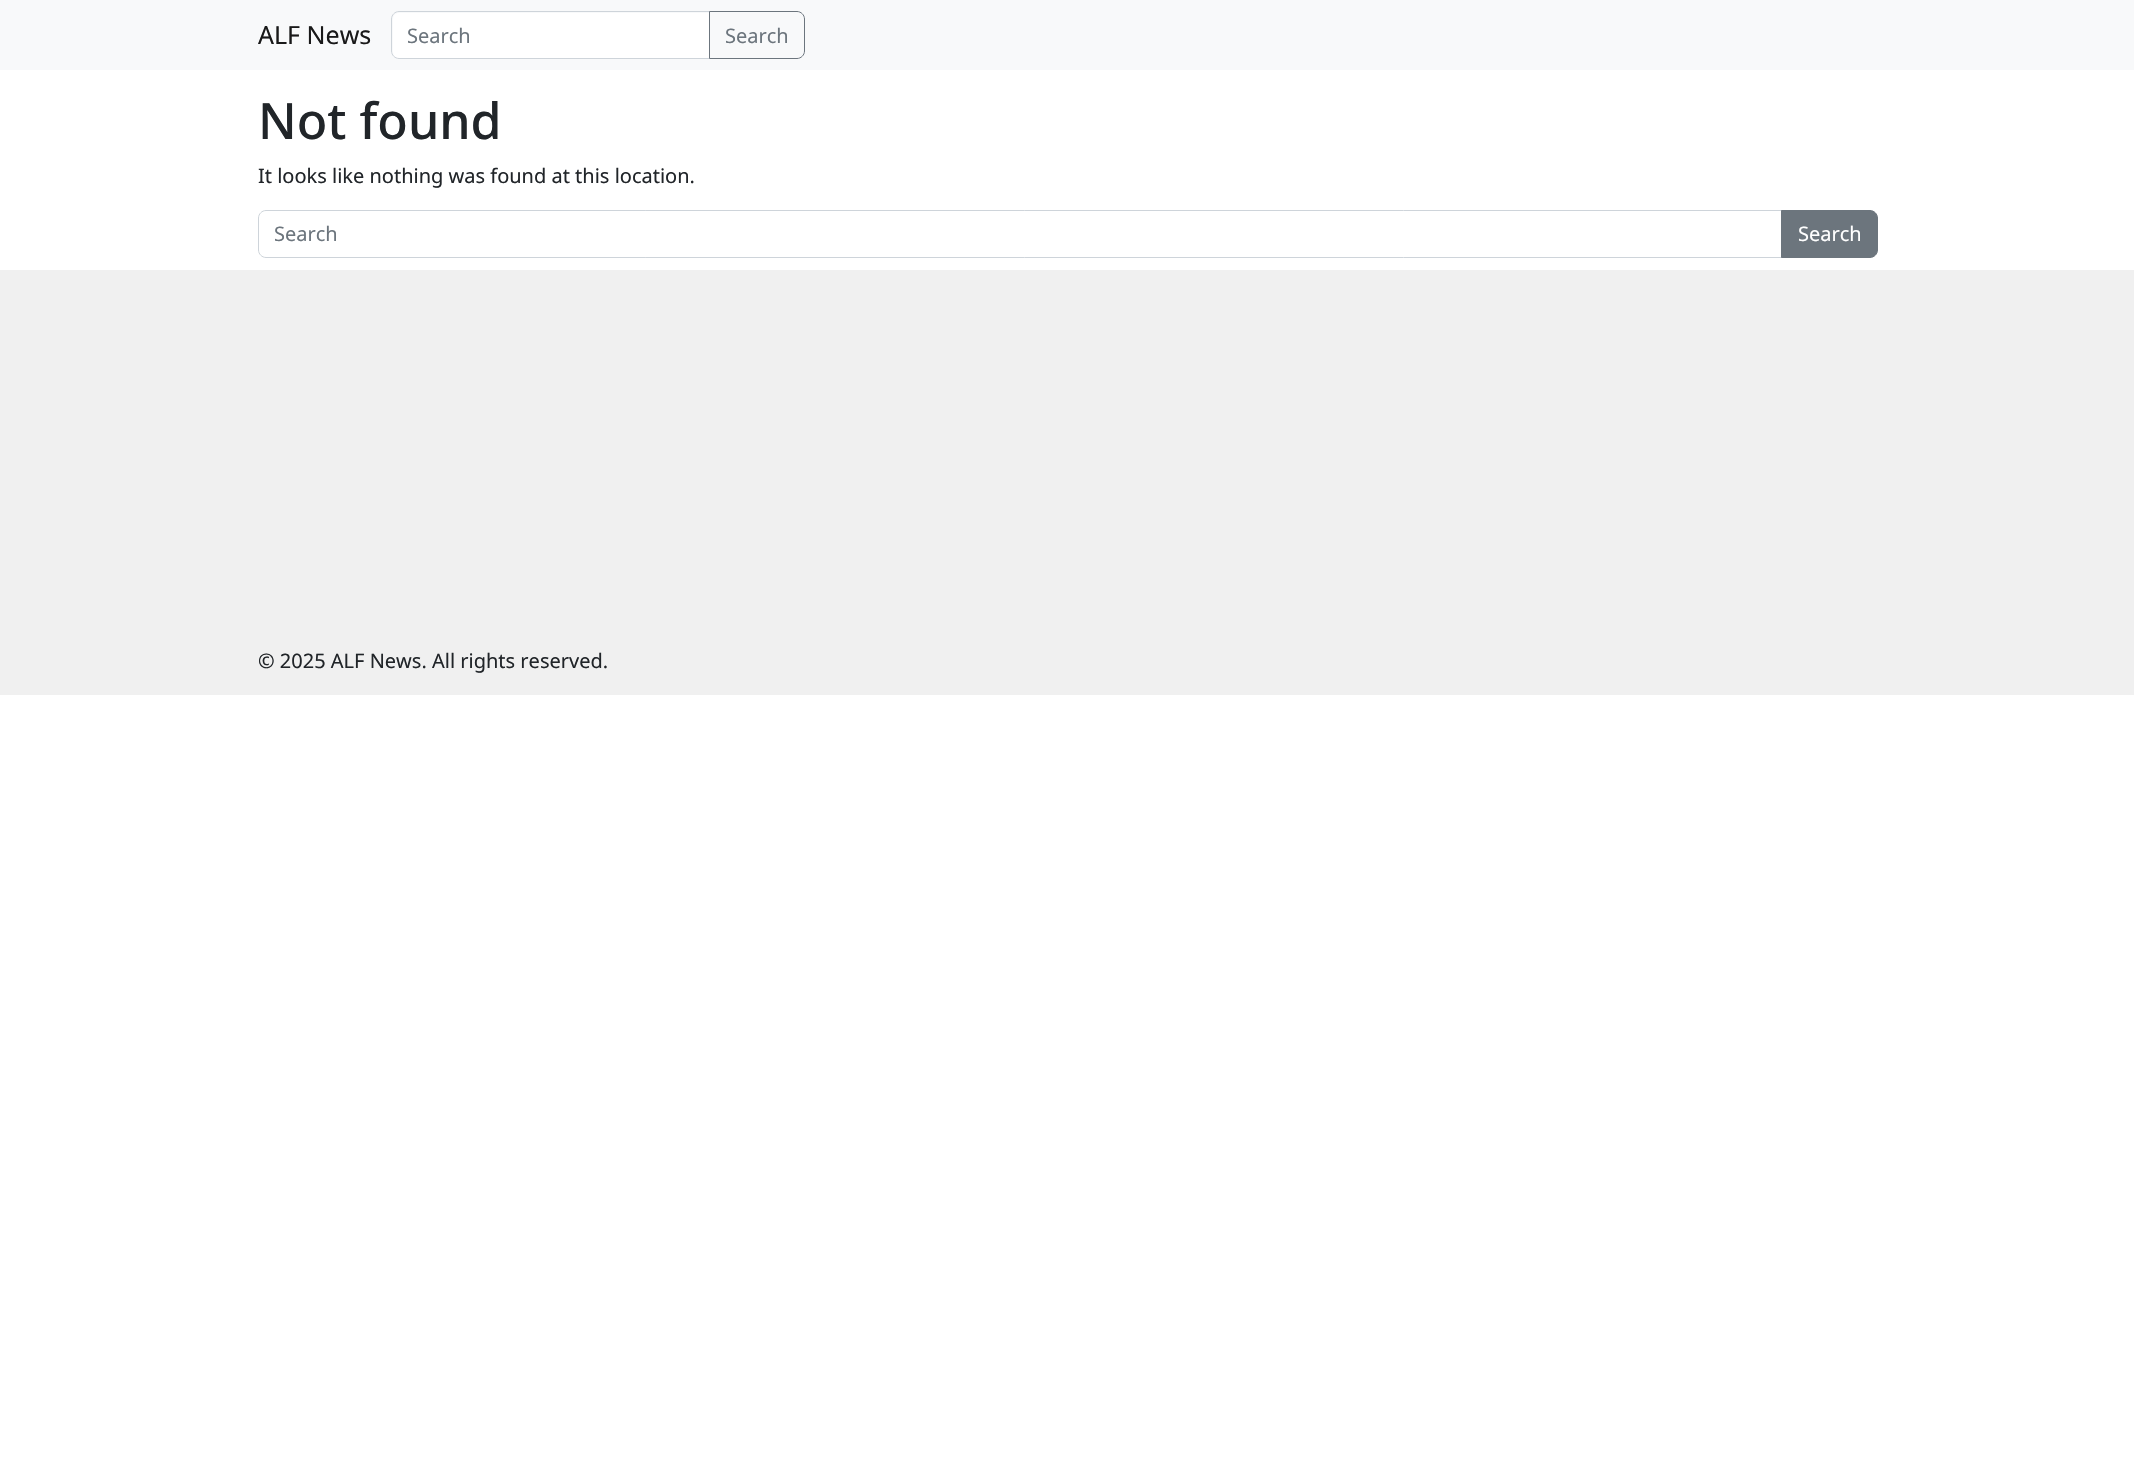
void draw(SkCanvas* c) {
SkPaint p;
p.setAntiAlias(true);
auto F=[&](const char* family, int weight, float size, bool italic = false){SkFontStyle style(weight, SkFontStyle::kNormal_Width,italic ? SkFontStyle::kItalic_Slant : SkFontStyle::kUpright_Slant);SkFont result(fontMgr->matchFamilyStyle(family, style), size);result.setSubpixel(true);return result;};
auto T=[&](const char* s, float x, float y, const SkFont& font){c->drawString(s, x, y, font, p);};
auto R=[&](float x, float y, float w, float h){c->drawRect(SkRect::MakeXYWH(x, y, w, h), p);};
auto P=[&](const char* data, bool evenOdd = false){SkPath result = *SkParsePath::FromSVGString(data);if (evenOdd) result.setFillType(SkPathFillType::kEvenOdd);return result;};
c->clear(0xffffffff);
p.setColor(0xfff8f9fa);
R(0,0,2134,70);
auto f1 = F("Noto Sans",400,25);
p.setColor(0xff191919);
T("ALF News",258,44,f1);
p.setColor(0xffffffff);
c->drawPath(P("M399 13h310v45h-310c-3.5 0-6-2.5-6-6v-33c0-3.5 2.5-6 6-6z"),p);
p.setStroke(true);
p.setStrokeWidth(1);
p.setColor(0xffced4da);
c->drawPath(P("M399 11.5h310.5v47h-310.5c-4 0-7.5-3.5-7.5-7.5v-32c0-4 3.5-7.5 7.5-7.5z"),p);
auto f2 = F("Noto Sans",400,20);
p.setStroke(false);
p.setColor(0xff6c757d);
T("Search",407,43,f2);
p.setStroke(true);
c->drawPath(P("M709.5 11.5h87.5c4 0 7.5 3.5 7.5 7.5v32c0 4-3.5 7.5-7.5 7.5h-87.5z"),p);
p.setStroke(false);
T("Search",725,43,f2);
auto f3 = F("Noto Sans",500,50);
p.setColor(0xff212529);
T("Not found",258,139,f3);
T("It looks like nothing was found at this location.",258,183,f2);
p.setStroke(true);
p.setColor(0xffced4da);
c->drawPath(P("M266 210.5h1516.5v47h-1516.5c-4 0-7.5-3.5-7.5-7.5v-32c0-4 3.5-7.5 7.5-7.5z"),p);
p.setStroke(false);
p.setColor(0xff6c757d);
T("Search",274,241,f2);
c->drawPath(P("M1781.5 210.5h88.5c4 0 7.5 3.5 7.5 7.5v32c0 4-3.5 7.5-7.5 7.5h-88.5z"),p);
p.setStroke(true);
c->drawPath(P("M1781.5 210.5h88.5c4 0 7.5 3.5 7.5 7.5v32c0 4-3.5 7.5-7.5 7.5h-88.5z"),p);
p.setStroke(false);
p.setColor(0xffffffff);
T("Search",1798,241,f2);
p.setColor(0xfff0f0f0);
R(0,270,2134,425);
p.setColor(0xff212529);
T("© 2025 ALF News. All rights reserved.",258,668,f2);
}
